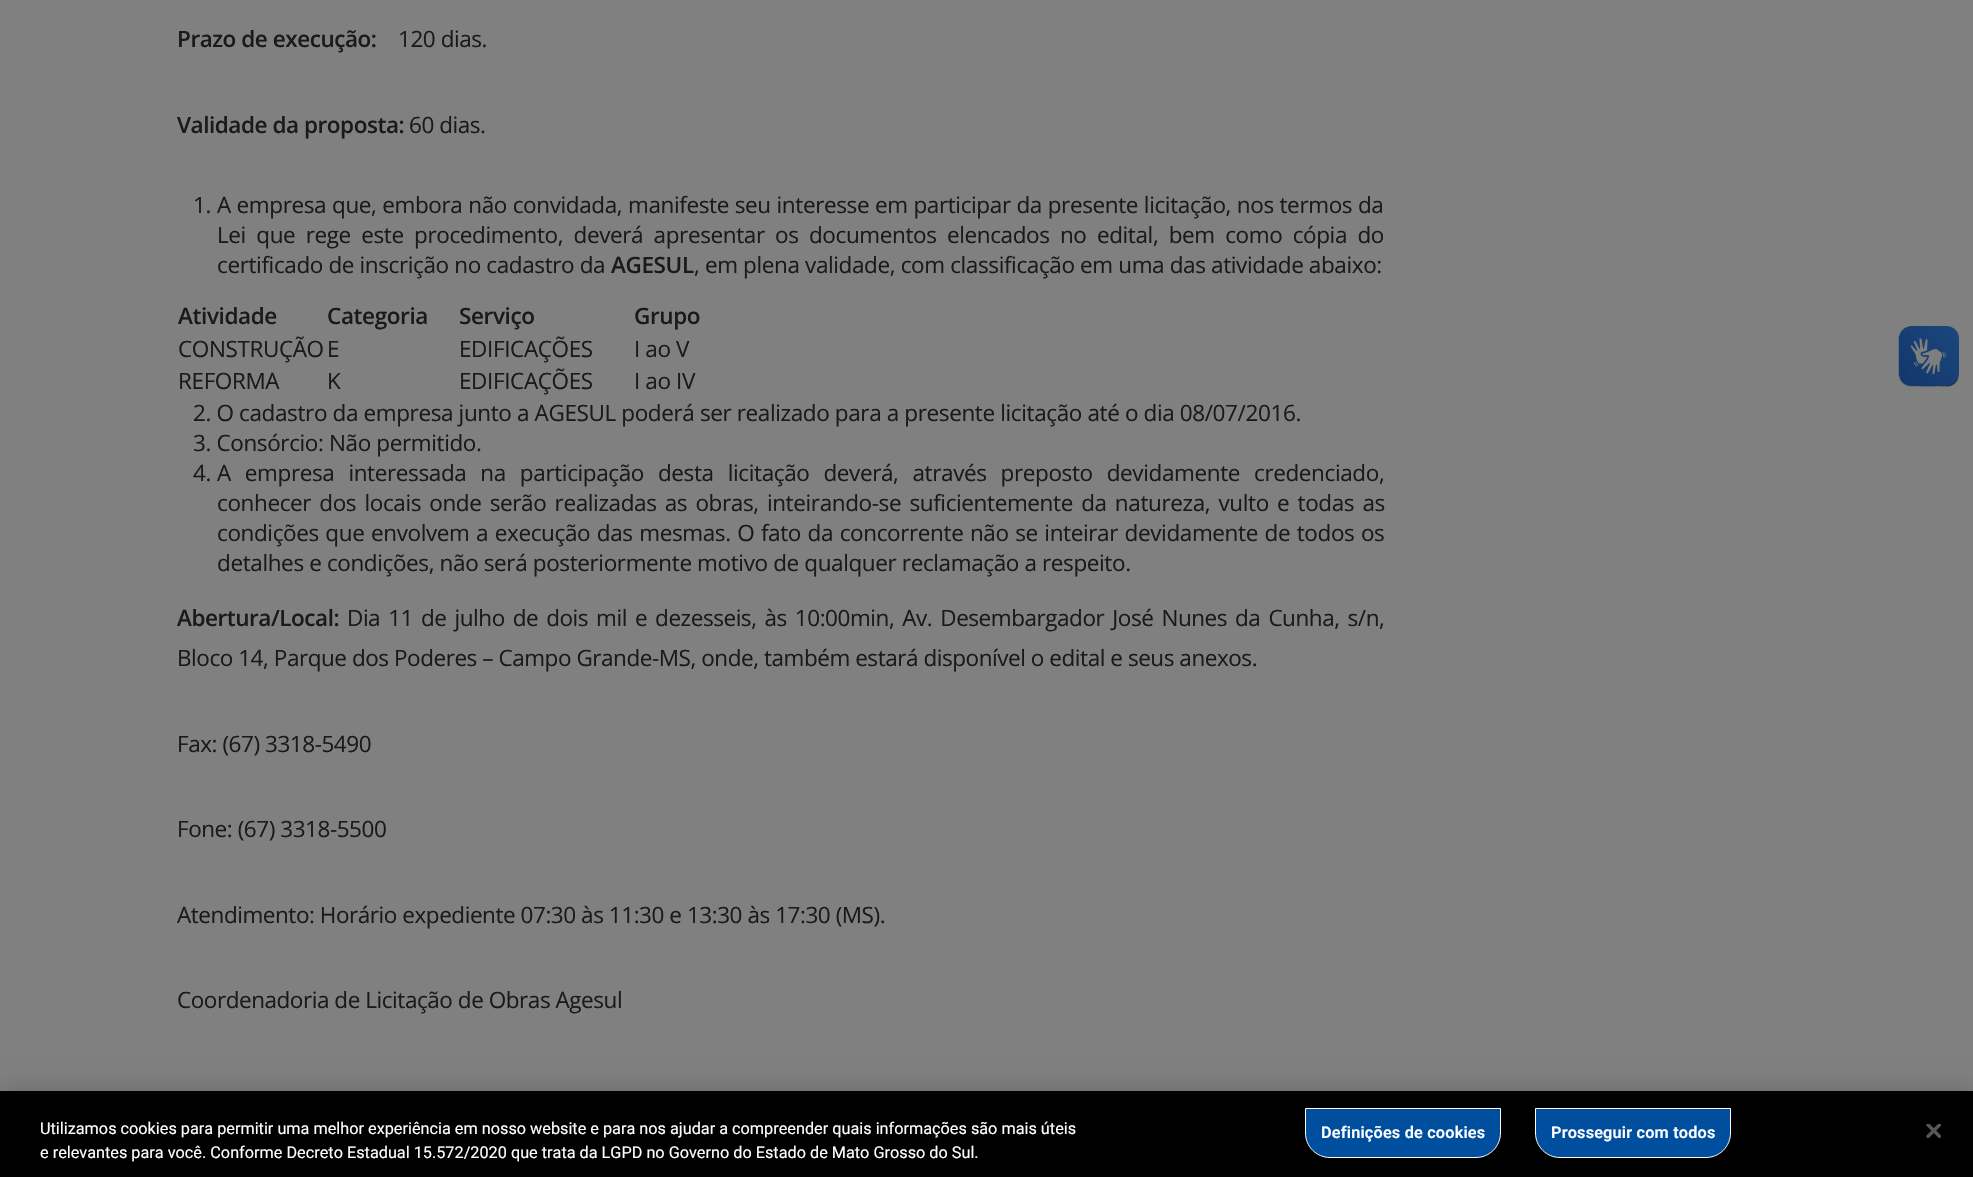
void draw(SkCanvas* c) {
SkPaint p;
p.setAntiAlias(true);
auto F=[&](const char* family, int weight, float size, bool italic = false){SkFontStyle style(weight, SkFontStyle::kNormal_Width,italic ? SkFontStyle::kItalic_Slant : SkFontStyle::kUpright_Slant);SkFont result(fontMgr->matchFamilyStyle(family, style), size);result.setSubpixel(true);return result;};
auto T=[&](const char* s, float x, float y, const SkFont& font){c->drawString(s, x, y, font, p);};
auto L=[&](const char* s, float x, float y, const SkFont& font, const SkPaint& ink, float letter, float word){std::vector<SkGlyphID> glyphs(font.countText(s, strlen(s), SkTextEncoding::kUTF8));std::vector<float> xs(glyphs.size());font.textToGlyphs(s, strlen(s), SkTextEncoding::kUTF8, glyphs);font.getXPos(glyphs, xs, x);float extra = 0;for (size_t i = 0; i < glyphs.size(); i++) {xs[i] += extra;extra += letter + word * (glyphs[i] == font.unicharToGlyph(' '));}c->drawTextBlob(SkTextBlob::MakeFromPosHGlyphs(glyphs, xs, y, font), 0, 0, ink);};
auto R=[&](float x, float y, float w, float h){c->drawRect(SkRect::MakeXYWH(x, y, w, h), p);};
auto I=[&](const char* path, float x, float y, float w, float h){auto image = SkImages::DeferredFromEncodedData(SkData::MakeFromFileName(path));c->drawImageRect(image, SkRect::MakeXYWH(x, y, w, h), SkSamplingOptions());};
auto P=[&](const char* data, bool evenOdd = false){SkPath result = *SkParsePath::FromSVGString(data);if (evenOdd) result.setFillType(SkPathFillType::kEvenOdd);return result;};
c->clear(0xff808080);
auto f1 = F("Open Sans",600,22.5);
p.setColor(0xff1a1a1a);
L("Prazo de execução:",177,47,f1,p,-.45,0);
auto f2 = F("Open Sans",400,22.5);
L("120 dias.",398,47,f2,p,-.45,0);
L("Validade da proposta:",177,133,f1,p,-.45,0);
L("60 dias.",409,133,f2,p,-.45,0);
L("1.",193,213,f2,p,-.38,0);
L("A empresa que, embora não convidada, manifeste seu interesse em participar da presente licitação, nos termos da",217,213,f2,p,-.38,.3);
L("Lei que rege este procedimento, deverá apresentar os documentos elencados no edital, bem como cópia do",217,243,f2,p,-.38,4.9);
L("certificado de inscrição no cadastro da",217,273,f2,p,-.38,0);
L("AGESUL",611,273,f1,p,-.38,0);
L(", em plena validade, com classificação em uma das atividade abaixo:",694,273,f2,p,-.38,0);
L("Atividade",178,324,f1,p,-.38,0);
L("Categoria",327,324,f1,p,-.38,0);
L("Serviço",459,324,f1,p,-.38,0);
L("Grupo",634,324,f1,p,-.38,0);
L("CONSTRUÇÃO",178,357,f2,p,-.38,0);
L("E",327,357,f2,p,-.38,0);
L("EDIFICAÇÕES",459,357,f2,p,-.38,0);
L("I ao V",634,357,f2,p,-.38,0);
L("REFORMA",178,389,f2,p,-.38,0);
L("K",327,389,f2,p,-.38,0);
L("EDIFICAÇÕES",459,389,f2,p,-.38,0);
L("I ao IV",634,389,f2,p,-.38,0);
L("2. O cadastro da empresa junto a AGESUL poderá ser realizado para a presente licitação até o dia 08/07/2016.",193,421,f2,p,-.38,0);
L("3. Consórcio: Não permitido.",193,451,f2,p,-.38,0);
L("4.",193,481,f2,p,-.38,0);
L("A empresa interessada na participação desta licitação deverá, através preposto devidamente credenciado,",217,481,f2,p,-.38,8.5);
L("conhecer dos locais onde serão realizadas as obras, inteirando-se suficientemente da natureza, vulto e todas as",217,511,f2,p,-.38,2.75);
L("condições que envolvem a execução das mesmas. O fato da concorrente não se inteirar devidamente de todos os",217,541,f2,p,-.38,1.1);
L("detalhes e condições, não será posteriormente motivo de qualquer reclamação a respeito.",217,571,f2,p,-.38,0);
L("Abertura/Local:",177,626,f1,p,-.45,0);
L("Dia 11 de julho de dois mil e dezesseis, às 10:00min, Av. Desembargador José Nunes da Cunha, s/n,",347,626,f2,p,-.45,2.6);
L("Bloco 14, Parque dos Poderes – Campo Grande-MS, onde, também estará disponível o edital e seus anexos.",177,666,f2,p,-.45,0);
L("Fax: (67) 3318-5490",177,752,f2,p,-.45,0);
L("Fone: (67) 3318-5500",177,837,f2,p,-.45,0);
L("Atendimento: Horário expediente 07:30 às 11:30 e 13:30 às 17:30 (MS).",177,923,f2,p,-.45,0);
L("Coordenadoria de Licitação de Obras Agesul",177,1008,f2,p,-.45,0);
I("1.png",1898,326,61,61);
I("2.png",1899,326,60,60);
p.setColor(0x33000000);
p.setMaskFilter(SkMaskFilter::MakeBlur(kNormal_SkBlurStyle, 11));
c->drawRect(SkRect::MakeXYWH(0,1091,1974,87),p);
p.setMaskFilter(nullptr);
p.setColor(0xff000000);
R(0,1091,1973,86);
auto f3 = F("Roboto",400,16.25);
p.setColor(0xffffffff);
T("Utilizamos cookies para permitir uma melhor experiência em nosso website e para nos ajudar a compreender quais informações são mais úteis",40,1134,f3);
T("e relevantes para você. Conforme Decreto Estadual 15.572/2020 que trata da LGPD no Governo do Estado de Mato Grosso do Sul.",40,1158,f3);
p.setColor(0xff004f9f);
c->drawPath(P("M1305.5 1108.5h195v24.5c0 13.5-11 24.5-24.5 24.5h-146c-13.5 0-24.5-11-24.5-24.5z"),p);
p.setStroke(true);
p.setStrokeWidth(1);
p.setColor(0xffffffff);
c->drawPath(P("M1305.5 1108.5h195v24.5c0 13.5-11 24.5-24.5 24.5h-146c-13.5 0-24.5-11-24.5-24.5z"),p);
auto f4 = F("Roboto",600,16.25);
p.setStroke(false);
L("Definições de cookies",1321,1138,f4,p,.2,0);
p.setColor(0xff004f9f);
c->drawPath(P("M1535.5 1108.5h195v24.5c0 13.5-11 24.5-24.5 24.5h-146c-13.5 0-24.5-11-24.5-24.5z"),p);
p.setStroke(true);
p.setColor(0xffffffff);
c->drawPath(P("M1535.5 1108.5h195v24.5c0 13.5-11 24.5-24.5 24.5h-146c-13.5 0-24.5-11-24.5-24.5z"),p);
p.setStroke(false);
L("Prosseguir com todos",1551,1138,f4,p,.2,0);
I("3.png",1926,1124,15,15);
}
